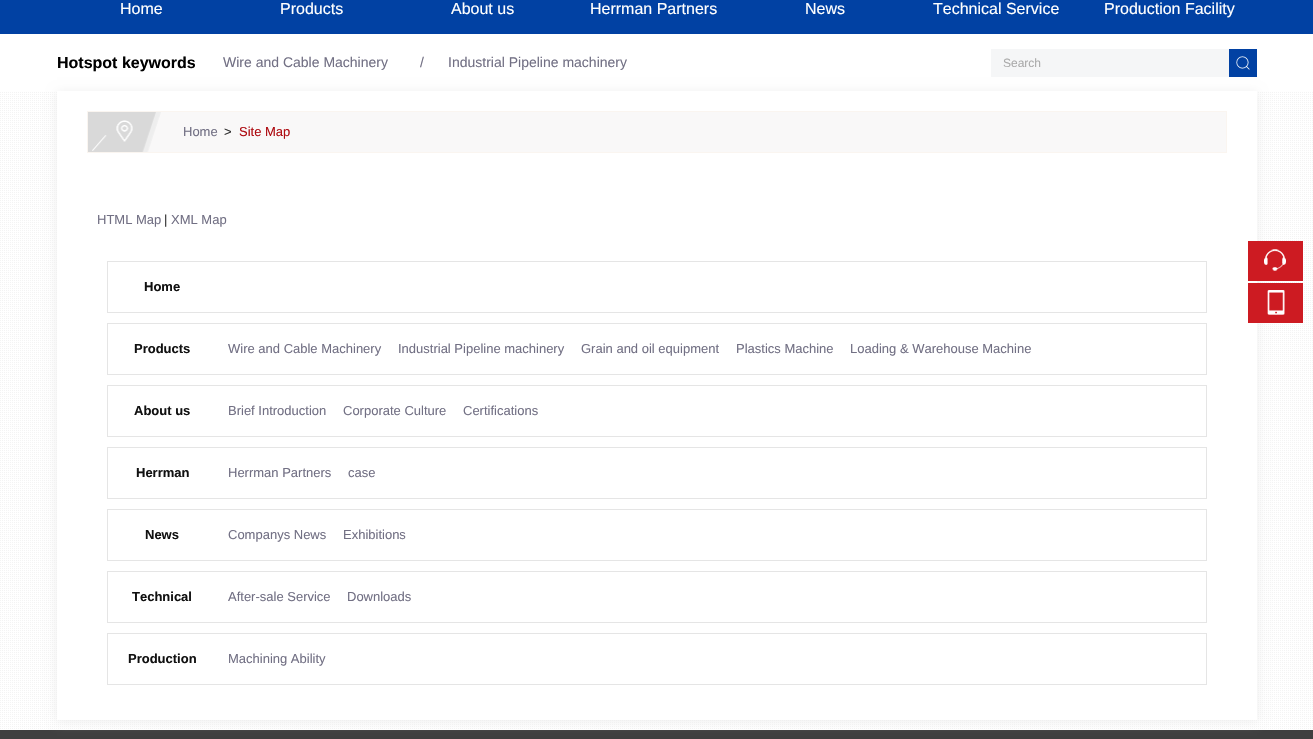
void draw(SkCanvas* c) {
SkPaint p;
p.setAntiAlias(true);
auto F=[&](const char* family, int weight, float size, bool italic = false){SkFontStyle style(weight, SkFontStyle::kNormal_Width,italic ? SkFontStyle::kItalic_Slant : SkFontStyle::kUpright_Slant);SkFont result(fontMgr->matchFamilyStyle(family, style), size);result.setSubpixel(true);return result;};
auto T=[&](const char* s, float x, float y, const SkFont& font){c->drawString(s, x, y, font, p);};
auto R=[&](float x, float y, float w, float h){c->drawRect(SkRect::MakeXYWH(x, y, w, h), p);};
auto I=[&](const char* path, float x, float y, float w, float h){auto image = SkImages::DeferredFromEncodedData(SkData::MakeFromFileName(path));c->drawImageRect(image, SkRect::MakeXYWH(x, y, w, h), SkSamplingOptions());};
c->clear(0xffffffff);
p.setColor(0xff0141a3);
R(0,0,1313,34);
auto f1 = F("Liberation Sans",400,16);
p.setColor(0xffffffff);
T("Home",120,14,f1);
T("Products",280,14,f1);
T("About us",451,14,f1);
T("Herrman Partners",590,14,f1);
T("News",805,14,f1);
T("Technical Service",933,14,f1);
T("Production Facility",1104,14,f1);
auto f2 = F("Liberation Sans",700,16);
p.setColor(0xff000000);
T("Hotspot keywords",57,68,f2);
auto f3 = F("Liberation Sans",400,14);
p.setColor(0xff727084);
T("Wire and Cable Machinery",223,67,f3);
T("/",420,67,f3);
T("Industrial Pipeline machinery",448,67,f3);
I("2.png",0,92,1313,637);
p.setColor(0xff3f3f3f);
R(0,730,1313,9);
p.setColor(0xffeeeeee);
p.setMaskFilter(SkMaskFilter::MakeBlur(kNormal_SkBlurStyle, 5));
c->drawRect(SkRect::MakeXYWH(57,92,1200,629),p);
p.setMaskFilter(nullptr);
p.setColor(0xfff5f6f7);
R(991,49,238,28);
auto f4 = F("Liberation Sans",400,12);
p.setColor(0xffaaaaaa);
T("Search",1003,67,f4);
p.setColor(0xff0141a3);
R(1229,49,28,28);
I("1.png",1236,56,14,14);
p.setColor(0xffffffff);
R(57,91,1200,629);
p.setColor(0xfff9f8f8);
R(147,112,1079,40);
p.setStroke(true);
p.setStrokeWidth(1);
p.setColor(0xfffaf5f0);
c->drawRect(SkRect::MakeXYWH(87.5,111.5,1139,41),p);
I("3.png",88,112,73,40);
auto f5 = F("Liberation Sans",400,13);
p.setStroke(false);
p.setColor(0xff727084);
T("Home",183,136,f5);
p.setColor(0xff333333);
T(">",224,136,f5);
p.setColor(0xffae0b11);
T("Site Map",239,136,f5);
p.setColor(0xff727084);
T("HTML Map",97,224,f5);
p.setColor(0xff333333);
T("|",164,224,f5);
p.setColor(0xff727084);
T("XML Map",171,224,f5);
p.setStroke(true);
p.setColor(0xffe5e5e5);
c->drawRect(SkRect::MakeXYWH(107.5,261.5,1099,51),p);
auto f6 = F("Liberation Sans",700,13);
p.setStroke(false);
p.setColor(0xff111111);
T("Home",144,291,f6);
p.setStroke(true);
p.setColor(0xffe5e5e5);
c->drawRect(SkRect::MakeXYWH(107.5,323.5,1099,51),p);
p.setStroke(false);
p.setColor(0xff111111);
T("Products",134,353,f6);
p.setColor(0xff727084);
T("Wire and Cable Machinery",228,353,f5);
T("Industrial Pipeline machinery",398,353,f5);
T("Grain and oil equipment",581,353,f5);
T("Plastics Machine",736,353,f5);
T("Loading & Warehouse Machine",850,353,f5);
p.setStroke(true);
p.setColor(0xffe5e5e5);
c->drawRect(SkRect::MakeXYWH(107.5,385.5,1099,51),p);
p.setStroke(false);
p.setColor(0xff111111);
T("About us",134,415,f6);
p.setColor(0xff727084);
T("Brief Introduction",228,415,f5);
T("Corporate Culture",343,415,f5);
T("Certifications",463,415,f5);
p.setStroke(true);
p.setColor(0xffe5e5e5);
c->drawRect(SkRect::MakeXYWH(107.5,447.5,1099,51),p);
p.setStroke(false);
p.setColor(0xff111111);
T("Herrman",136,477,f6);
p.setColor(0xff727084);
T("Herrman Partners",228,477,f5);
T("case",348,477,f5);
p.setStroke(true);
p.setColor(0xffe5e5e5);
c->drawRect(SkRect::MakeXYWH(107.5,509.5,1099,51),p);
p.setStroke(false);
p.setColor(0xff111111);
T("News",145,539,f6);
p.setColor(0xff727084);
T("Companys News",228,539,f5);
T("Exhibitions",343,539,f5);
p.setStroke(true);
p.setColor(0xffe5e5e5);
c->drawRect(SkRect::MakeXYWH(107.5,571.5,1099,51),p);
p.setStroke(false);
p.setColor(0xff111111);
T("Technical",132,601,f6);
p.setColor(0xff727084);
T("After-sale Service",228,601,f5);
T("Downloads",347,601,f5);
p.setStroke(true);
p.setColor(0xffe5e5e5);
c->drawRect(SkRect::MakeXYWH(107.5,633.5,1099,51),p);
p.setStroke(false);
p.setColor(0xff111111);
T("Production",128,663,f6);
p.setColor(0xff727084);
T("Machining Ability",228,663,f5);
p.setColor(0xffcd1b22);
R(1248,241,55,40);
I("4.png",1264,249,22,22);
R(1248,283,55,40);
I("5.png",1267,290,18,25);
}
